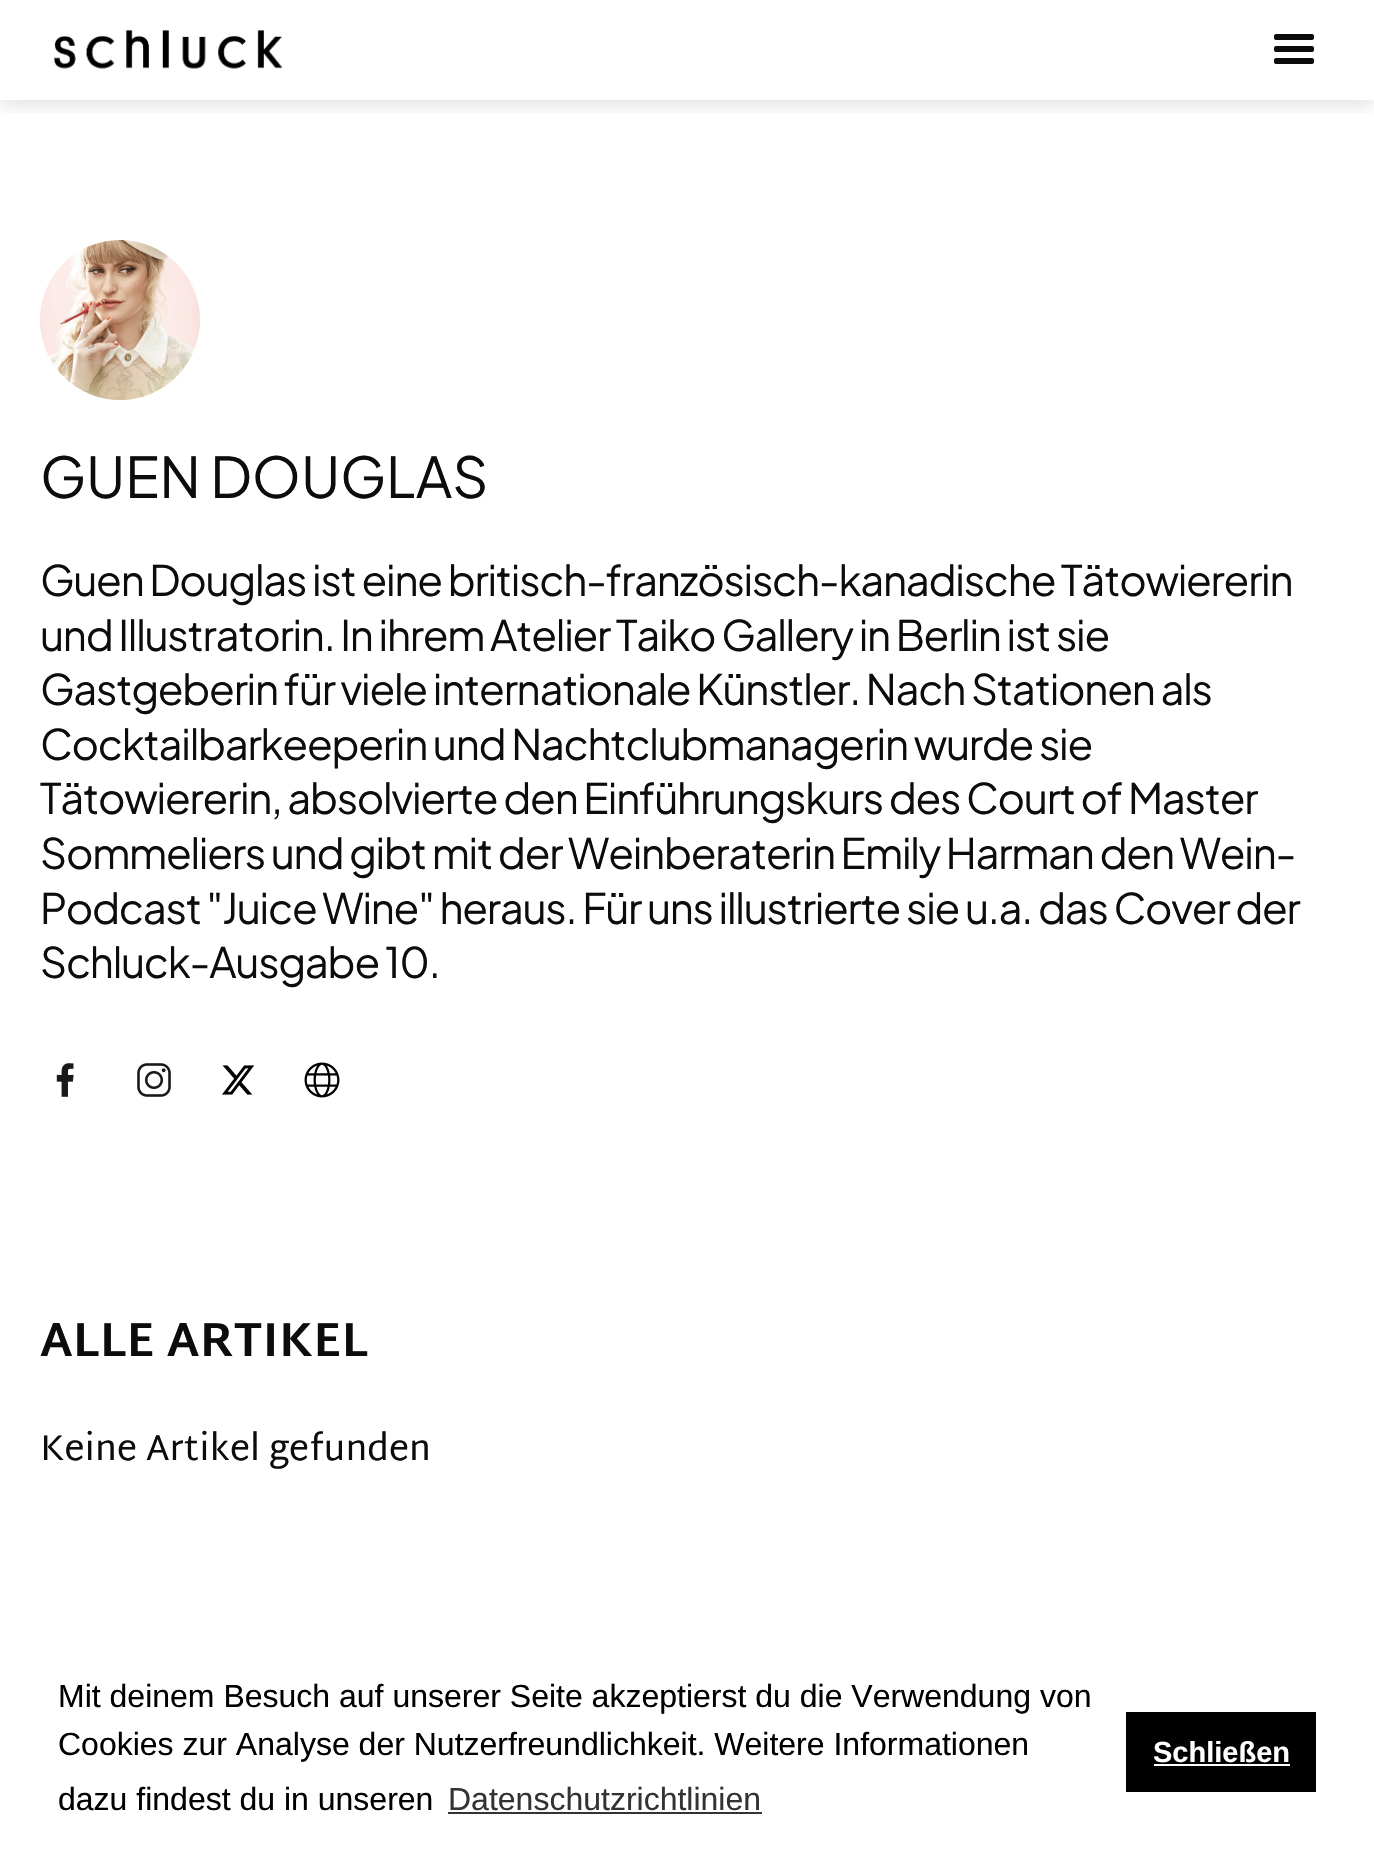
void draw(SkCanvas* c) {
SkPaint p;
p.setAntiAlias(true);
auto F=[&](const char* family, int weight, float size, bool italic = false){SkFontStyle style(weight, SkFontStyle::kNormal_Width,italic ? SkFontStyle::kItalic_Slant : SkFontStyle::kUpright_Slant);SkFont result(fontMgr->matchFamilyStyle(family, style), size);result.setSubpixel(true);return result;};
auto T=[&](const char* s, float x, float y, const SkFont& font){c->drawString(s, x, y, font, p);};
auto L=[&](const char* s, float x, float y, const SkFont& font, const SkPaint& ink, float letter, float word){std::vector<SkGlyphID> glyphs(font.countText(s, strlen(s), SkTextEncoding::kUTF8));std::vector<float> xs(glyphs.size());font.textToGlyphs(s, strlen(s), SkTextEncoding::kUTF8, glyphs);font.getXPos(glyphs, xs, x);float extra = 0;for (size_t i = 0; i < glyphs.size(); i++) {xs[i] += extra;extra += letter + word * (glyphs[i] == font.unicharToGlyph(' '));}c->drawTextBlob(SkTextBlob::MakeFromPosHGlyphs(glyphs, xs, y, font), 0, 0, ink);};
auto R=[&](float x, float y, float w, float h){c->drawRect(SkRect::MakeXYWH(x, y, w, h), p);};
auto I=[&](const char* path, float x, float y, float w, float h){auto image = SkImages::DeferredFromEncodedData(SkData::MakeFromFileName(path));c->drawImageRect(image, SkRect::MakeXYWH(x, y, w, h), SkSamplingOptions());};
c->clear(0xffffffff);
c->save();
c->clipRect(SkRect::MakeXYWH(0,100,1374,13));
p.setColor(0x26000000);
p.setMaskFilter(SkMaskFilter::MakeBlur(kNormal_SkBlurStyle, 10));
c->drawRect(SkRect::MakeXYWH(0,2,1374,100),p);
p.setMaskFilter(nullptr);
c->restore();
I("1.png",54,30,229,39);
I("2.png",1274,34,40,30);
I("3.png",40,240,160,160);
auto f1 = F("Plus Jakarta Sans",400,56);
p.setColor(0xff0c0c0c);
T("GUEN DOUGLAS",40,498,f1);
auto f2 = F("Plus Jakarta Sans",400,42);
L("Guen Douglas ist eine britisch-französisch-kanadische Tätowiererin",40,596,f2,p,-1.25,0);
L("und Illustratorin. In ihrem Atelier Taiko Gallery in Berlin ist sie",40,651,f2,p,-1.25,0);
L("Gastgeberin für viele internationale Künstler. Nach Stationen als",40,705,f2,p,-1.25,0);
L("Cocktailbarkeeperin und Nachtclubmanagerin wurde sie",40,760,f2,p,-1.25,0);
L("Tätowiererin, absolvierte den Einführungskurs des Court of Master",40,814,f2,p,-1.25,0);
L("Sommeliers und gibt mit der Weinberaterin Emily Harman den Wein-",40,869,f2,p,-1.25,0);
L("Podcast \"Juice Wine\" heraus. Für uns illustrierte sie u.a. das Cover der",40,924,f2,p,-1.25,0);
L("Schluck-Ausgabe 10.",40,978,f2,p,-1.25,0);
I("4.png",56,1063,18,34);
I("5.png",137,1063,34,34);
I("6.png",222,1065,33,30);
I("7.png",304,1062,36,36);
auto f3 = F("Martel Sans",700,48);
T("ALLE ARTIKEL",40,1356,f3);
auto f4 = F("Martel Sans",400,36);
T("Keine Artikel gefunden",40,1460,f4);
auto f5 = F("Liberation Sans",400,32);
p.setColor(0xff000000);
T("Mit deinem Besuch auf unserer Seite akzeptierst du die Verwendung von",58,1707,f5);
T("Cookies zur Analyse der Nutzerfreundlichkeit. Weitere Informationen",58,1755,f5);
T("dazu findest du in unseren",58,1810,f5);
p.setColor(0xff333333);
T("Datenschutzrichtlinien",448,1810,f5);
R(448,1812,314,2);
p.setColor(0xff000000);
R(1126,1712,190,80);
auto f6 = F("Liberation Sans",700,29);
p.setColor(0xffffffff);
T("Schließen",1153,1762,f6);
R(1154,1764,136,2);
}
